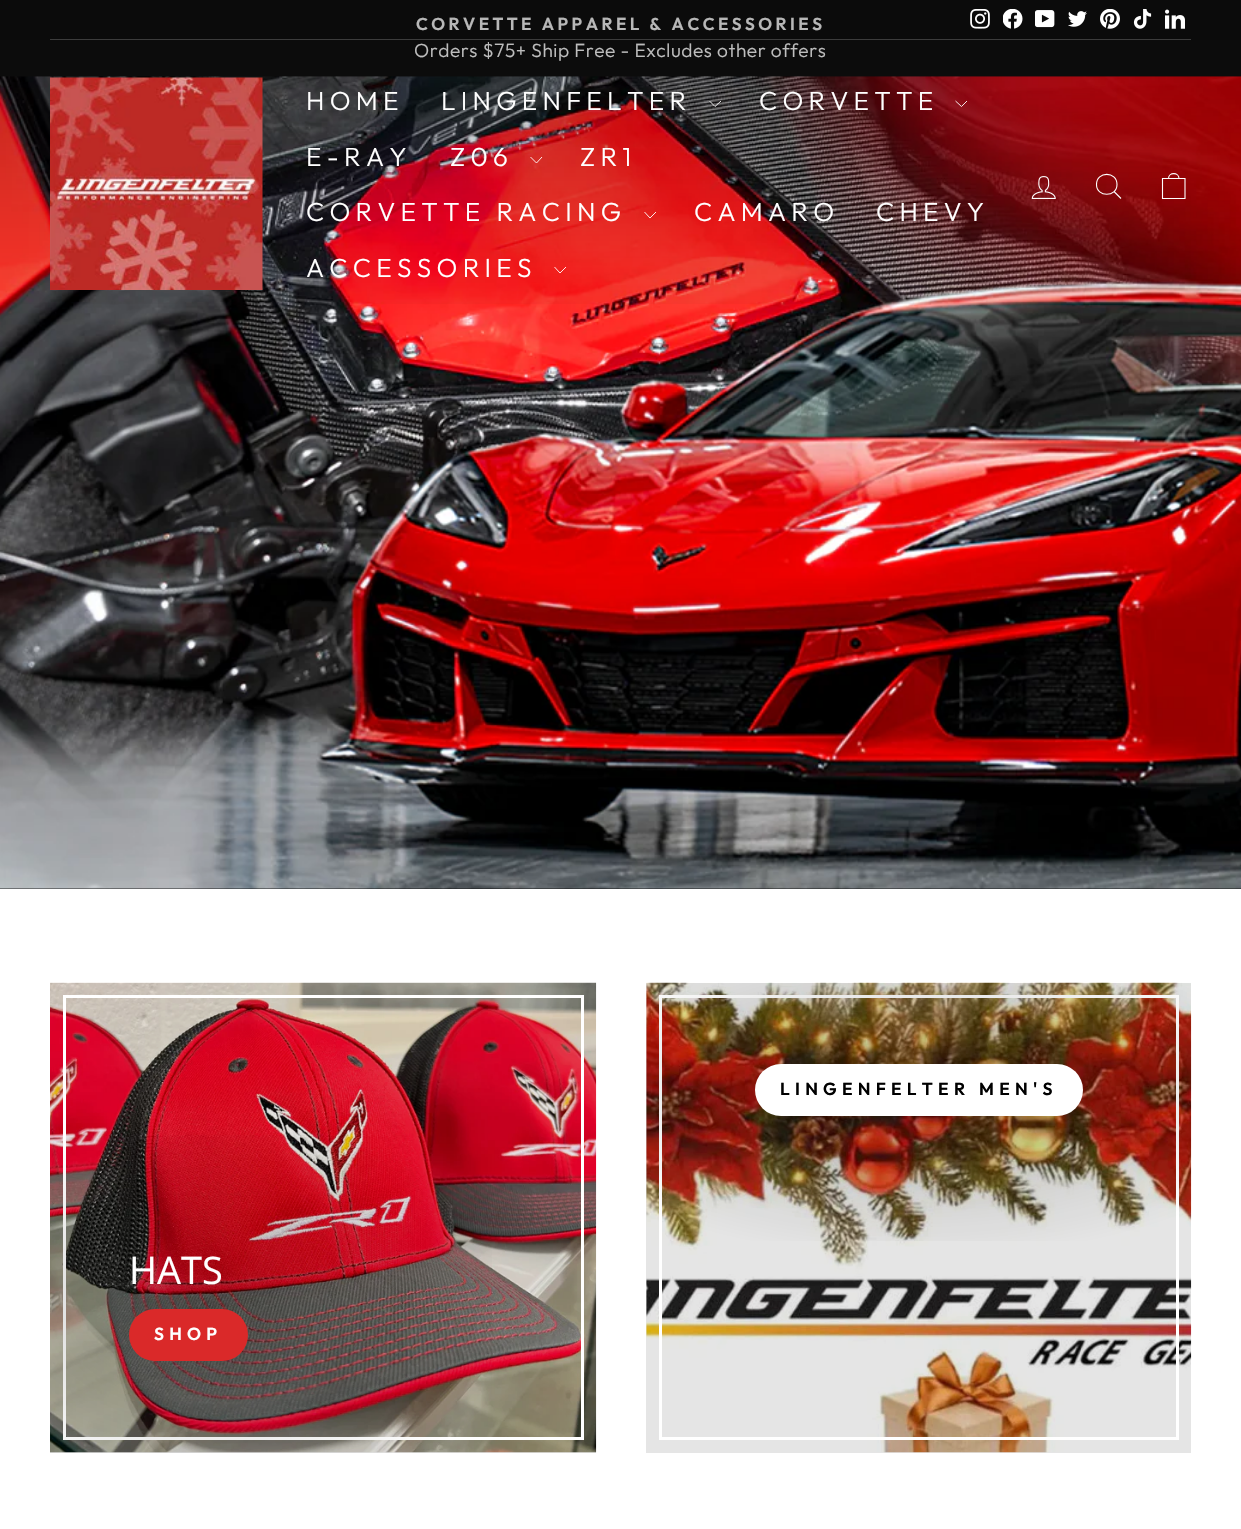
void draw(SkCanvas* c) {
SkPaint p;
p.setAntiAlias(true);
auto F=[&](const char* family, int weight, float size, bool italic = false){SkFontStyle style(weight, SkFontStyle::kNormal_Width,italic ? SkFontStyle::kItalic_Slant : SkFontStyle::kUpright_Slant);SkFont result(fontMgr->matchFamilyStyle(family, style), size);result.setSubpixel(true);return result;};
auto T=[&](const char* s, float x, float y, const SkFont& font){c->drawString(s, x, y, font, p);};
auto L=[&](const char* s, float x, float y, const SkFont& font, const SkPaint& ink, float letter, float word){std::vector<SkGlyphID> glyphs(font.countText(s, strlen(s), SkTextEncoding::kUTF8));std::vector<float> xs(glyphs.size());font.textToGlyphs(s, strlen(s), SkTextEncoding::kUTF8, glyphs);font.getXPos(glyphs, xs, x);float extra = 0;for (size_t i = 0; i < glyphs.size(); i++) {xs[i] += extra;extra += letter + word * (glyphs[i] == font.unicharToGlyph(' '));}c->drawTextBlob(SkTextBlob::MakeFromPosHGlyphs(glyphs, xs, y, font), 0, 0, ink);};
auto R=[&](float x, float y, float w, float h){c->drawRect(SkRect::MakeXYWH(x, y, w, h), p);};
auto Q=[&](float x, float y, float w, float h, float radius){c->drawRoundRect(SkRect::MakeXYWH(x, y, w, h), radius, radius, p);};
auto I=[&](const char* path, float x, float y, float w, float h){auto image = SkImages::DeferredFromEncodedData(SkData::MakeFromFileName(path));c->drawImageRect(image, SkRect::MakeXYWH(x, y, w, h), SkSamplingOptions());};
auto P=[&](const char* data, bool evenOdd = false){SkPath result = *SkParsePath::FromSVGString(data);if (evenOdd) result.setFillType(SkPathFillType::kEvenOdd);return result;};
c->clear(0xffffffff);
p.setColor(0xffe6e6e6);
R(646,983,545,470);
R(50,1452,546,1);
p.setColor(0xff0f0f0f);
R(0,0,1241,889);
auto f1 = F("Outfit",600,17.25);
p.setColor(0xffffffff);
L("CORVETTE APPAREL & ACCESSORIES",416,30,f1,p,3.45,0);
auto f2 = F("Outfit",300,19.1);
L("Orders $75+ Ship Free - Excludes other offers",414,57,f2,p,.55,0);
I("10.png",0,76,1241,813);
{
const SkColor colors[] = {0x4d000000,0x00000000};
const float stops[] = {0,1};
const SkPoint ends[] = {{621,0}, {621,328}};
p.setShader(SkGradientShader::MakeLinear(ends, colors, stops, 2, SkTileMode::kClamp));
p.setAlpha(255);
}
R(0,0,1241,304);
p.setShader(nullptr);
p.setColor(0xff3c3c3c);
R(50,39,1141,1);
I("1.png",970,9,20,20);
I("2.png",1003,9,20,20);
I("3.png",1035,10,20,18);
I("4.png",1068,11,19,16);
I("5.png",1100,9,20,20);
I("6.png",1133,9,19,20);
I("7.png",1165,9,20,20);
I("8.png",50,77,213,213);
auto f3 = F("Outfit",300,26.25);
p.setColor(0xffffffff);
L("HOME",306,110,f3,p,5.25,0);
L("LINGENFELTER",441,110,f3,p,5.25,0);
p.setStroke(true);
p.setStrokeWidth(.9);
c->drawPath(P("M709.5 101l5.5 5.5l6-5.5"),p);
p.setStroke(false);
L("CORVETTE",759,110,f3,p,5.25,0);
p.setStroke(true);
c->drawPath(P("M955.5 101l6 5.5l5.5-5.5"),p);
p.setStroke(false);
L("E-RAY",306,166,f3,p,5.25,0);
L("Z06",450,166,f3,p,5.25,0);
p.setStroke(true);
c->drawPath(P("M530.5 157l6 6l5.5-6"),p);
p.setStroke(false);
L("ZR1",580,166,f3,p,5.25,0);
L("CORVETTE RACING",306,221,f3,p,5.25,0);
p.setStroke(true);
c->drawPath(P("M644.5 212l5.5 6l6-6"),p);
p.setStroke(false);
L("CAMARO",694,221,f3,p,5.25,0);
L("CHEVY",876,221,f3,p,5.25,0);
L("ACCESSORIES",306,277,f3,p,5.25,0);
p.setStroke(true);
c->drawPath(P("M554.5 267l5.5 6l6-6"),p);
I("9.png",1031,176,25,23);
p.setStrokeWidth(1.1);
c->drawPath(P("M1117 184.5c0 13-20.5 13-20.5 0c0-13.5 20.5-13.5 20.5 0zm4 14l-7-7"),p);
c->drawPath(P("M1162.5 178.5h22.5v20h-22.5zm6 0c0-6.5 10.5-6.5 10.5 0"),p);
I("11.png",646,982,546,471);
p.setStrokeWidth(3);
c->drawRect(SkRect::MakeXYWH(660.5,996.5,517,442),p);
p.setStroke(false);
{
const SkColor colors[] = {0x33000000,0x00000000};
const float stops[] = {0,.6};
SkMatrix m = SkMatrix::Translate(919,1090).preScale(658,281);
p.setShader(SkGradientShader::MakeRadial({0, 0}, 1, colors, stops, 2, SkTileMode::kClamp, 0, &m));
p.setAlpha(255);
}
R(646,983,545,258);
p.setShader(nullptr);
p.setColor(0xffffffff);
Q(755,1064,328,52,26);
auto f4 = F("Outfit",600,17.5);
p.setColor(0xff000000);
L("LINGENFELTER MEN'S",780,1095,f4,p,5.25,0);
I("12.png",50,982,547,471);
p.setStroke(true);
p.setColor(0xffffffff);
c->drawRect(SkRect::MakeXYWH(64.5,996.5,518,442),p);
p.setStroke(false);
{
const SkColor colors[] = {0x33000000,0x00000000};
const float stops[] = {0,.6};
SkMatrix m = SkMatrix::Translate(209,1311).preScale(530,329);
p.setShader(SkGradientShader::MakeRadial({0, 0}, 1, colors, stops, 2, SkTileMode::kClamp, 0, &m));
p.setAlpha(255);
}
R(50,1135,442,318);
auto f5 = F("Open Sans",400,38);
p.setShader(nullptr);
p.setColor(0xffffffff);
T("HATS",129,1284,f5);
p.setColor(0xffda2929);
Q(129,1309,119,52,26);
p.setColor(0xffffffff);
L("SHOP",154,1340,f4,p,5.25,0);
}
